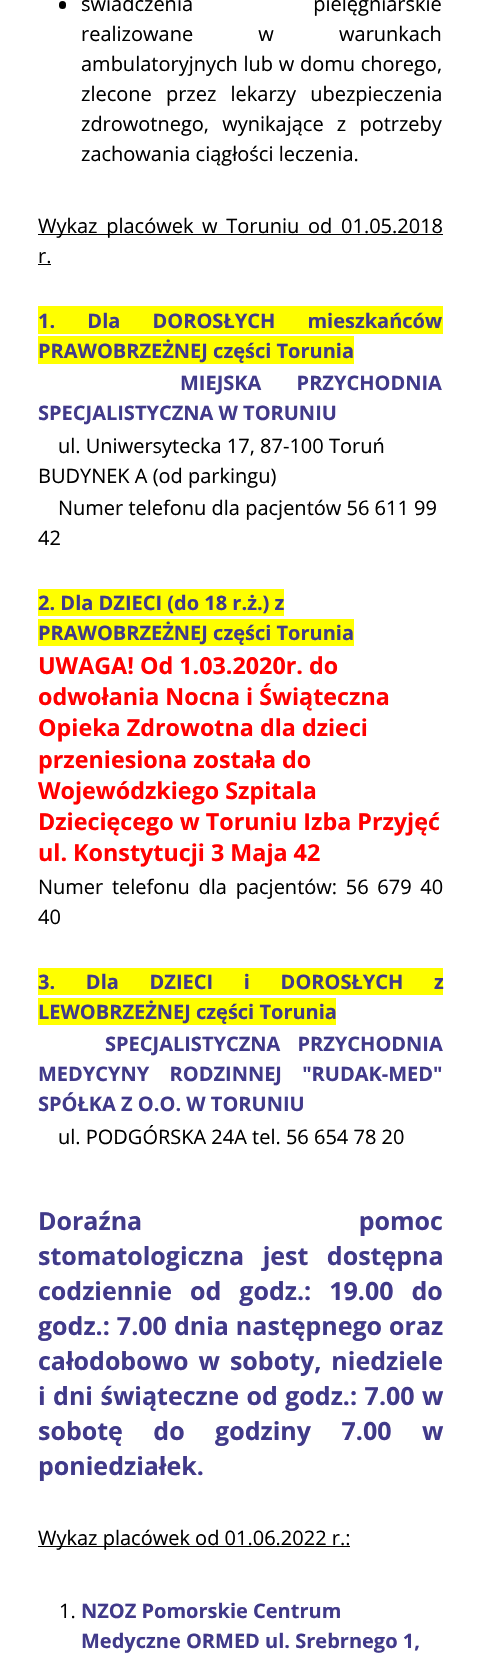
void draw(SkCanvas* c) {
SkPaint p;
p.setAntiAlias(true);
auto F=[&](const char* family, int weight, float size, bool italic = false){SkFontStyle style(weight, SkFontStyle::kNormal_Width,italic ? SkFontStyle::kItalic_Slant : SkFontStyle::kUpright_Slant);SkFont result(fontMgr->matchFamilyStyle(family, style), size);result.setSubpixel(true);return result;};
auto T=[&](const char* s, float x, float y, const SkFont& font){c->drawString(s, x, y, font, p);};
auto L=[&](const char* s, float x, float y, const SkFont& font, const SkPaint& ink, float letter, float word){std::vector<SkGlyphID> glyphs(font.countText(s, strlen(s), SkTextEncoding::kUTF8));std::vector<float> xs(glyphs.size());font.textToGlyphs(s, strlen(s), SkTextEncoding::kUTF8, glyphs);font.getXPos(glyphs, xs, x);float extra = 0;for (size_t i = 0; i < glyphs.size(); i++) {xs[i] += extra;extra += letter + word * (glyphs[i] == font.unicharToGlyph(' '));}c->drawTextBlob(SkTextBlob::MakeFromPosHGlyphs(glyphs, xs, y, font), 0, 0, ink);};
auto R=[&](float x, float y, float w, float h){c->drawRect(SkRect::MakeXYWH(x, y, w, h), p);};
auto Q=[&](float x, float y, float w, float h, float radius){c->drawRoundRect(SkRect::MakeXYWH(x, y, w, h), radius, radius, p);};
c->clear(0xffffffff);
p.setColor(0xff000000);
Q(59,1,7,8,3.5);
auto f1 = F("Open Sans",400,20);
L("świadczenia pielęgniarskie",81,11,f1,p,0,115);
L("realizowane w warunkach",81,41,f1,p,0,60);
L("ambulatoryjnych lub w domu chorego,",81,71,f1,p,0,.5);
L("zlecone przez lekarzy ubezpieczenia",81,101,f1,p,0,9);
L("zdrowotnego, wynikające z potrzeby",81,131,f1,p,0,8);
T("zachowania ciągłości leczenia.",81,161,f1);
R(38,234,405,1);
L("Wykaz placówek w Toruniu od 01.05.2018",38,233,f1,p,0,3.5);
T("r.",38,263,f1);
R(38,264,13,1);
p.setColor(0xffffff00);
R(38,306,405,28);
auto f2 = F("Open Sans",700,20);
p.setColor(0xff413a8a);
L("1. Dla DOROSŁYCH mieszkańców",38,328,f2,p,0,27);
p.setColor(0xffffff00);
R(38,336,316,28);
p.setColor(0xff413a8a);
T("PRAWOBRZEŻNEJ części Torunia",38,358,f2);
L("MIEJSKA PRZYCHODNIA",180,390,f2,p,0,30);
T("SPECJALISTYCZNA W TORUNIU",38,420,f2);
p.setColor(0xff000000);
T("ul. Uniwersytecka 17, 87-100 Toruń",58,453,f1);
T("BUDYNEK A (od parkingu)",38,483,f1);
T("Numer telefonu dla pacjentów 56 611 99",58,515,f1);
T("42",38,545,f1);
p.setColor(0xffffff00);
R(38,589,246,27);
p.setColor(0xff413a8a);
T("2. Dla DZIECI (do 18 r.ż.) z",38,610,f2);
p.setColor(0xffffff00);
R(38,619,316,27);
p.setColor(0xff413a8a);
T("PRAWOBRZEŻNEJ części Torunia",38,640,f2);
auto f3 = F("Open Sans",700,23.3);
p.setColor(0xffff0000);
T("UWAGA! Od 1.03.2020r. do",38,674,f3);
T("odwołania Nocna i Świąteczna",38,705,f3);
T("Opieka Zdrowotna dla dzieci",38,736,f3);
T("przeniesiona została do",38,768,f3);
T("Wojewódzkiego Szpitala",38,799,f3);
T("Dziecięcego w Toruniu Izba Przyjęć",38,830,f3);
T("ul. Konstytucji 3 Maja 42",38,861,f3);
p.setColor(0xff000000);
L("Numer telefonu dla pacjentów: 56 679 40",38,894,f1,p,0,3.5);
T("40",38,924,f1);
p.setColor(0xffffff00);
R(38,968,405,27);
p.setColor(0xff413a8a);
L("3. Dla DZIECI i DOROSŁYCH z",38,989,f2,p,0,25.5);
p.setColor(0xffffff00);
R(38,998,298,27);
p.setColor(0xff413a8a);
T("LEWOBRZEŻNEJ części Torunia",38,1019,f2);
L("SPECJALISTYCZNA PRZYCHODNIA",105,1051,f2,p,0,12);
L("MEDYCYNY RODZINNEJ \"RUDAK-MED\"",38,1081,f2,p,0,15);
T("SPÓŁKA Z O.O. W TORUNIU",38,1111,f2);
p.setColor(0xff000000);
T("ul. PODGÓRSKA 24A tel. 56 654 78 20",58,1144,f1);
auto f4 = F("Open Sans",700,25);
p.setColor(0xff413a8a);
L("Doraźna pomoc",38,1230,f4,p,0,210);
L("stomatologiczna jest dostępna",38,1265,f4,p,0,12);
L("codziennie od godz.: 19.00 do",38,1300,f4,p,0,11.5);
L("godz.: 7.00 dnia następnego oraz",38,1335,f4,p,0,.5);
L("całodobowo w soboty, niedziele",38,1370,f4,p,0,3.5);
L("i dni świąteczne od godz.: 7.00 w",38,1405,f4,p,0,1);
L("sobotę do godziny 7.00 w",38,1440,f4,p,0,24);
T("poniedziałek.",38,1475,f4);
p.setColor(0xff000000);
R(38,1546,312,1);
T("Wykaz placówek od 01.06.2022 r.:",38,1545,f1);
T("1.",59,1618,f1);
p.setColor(0xff413a8a);
T("NZOZ Pomorskie Centrum",81,1618,f2);
T("Medyczne ORMED ul. Srebrnego 1,",81,1648,f2);
}
